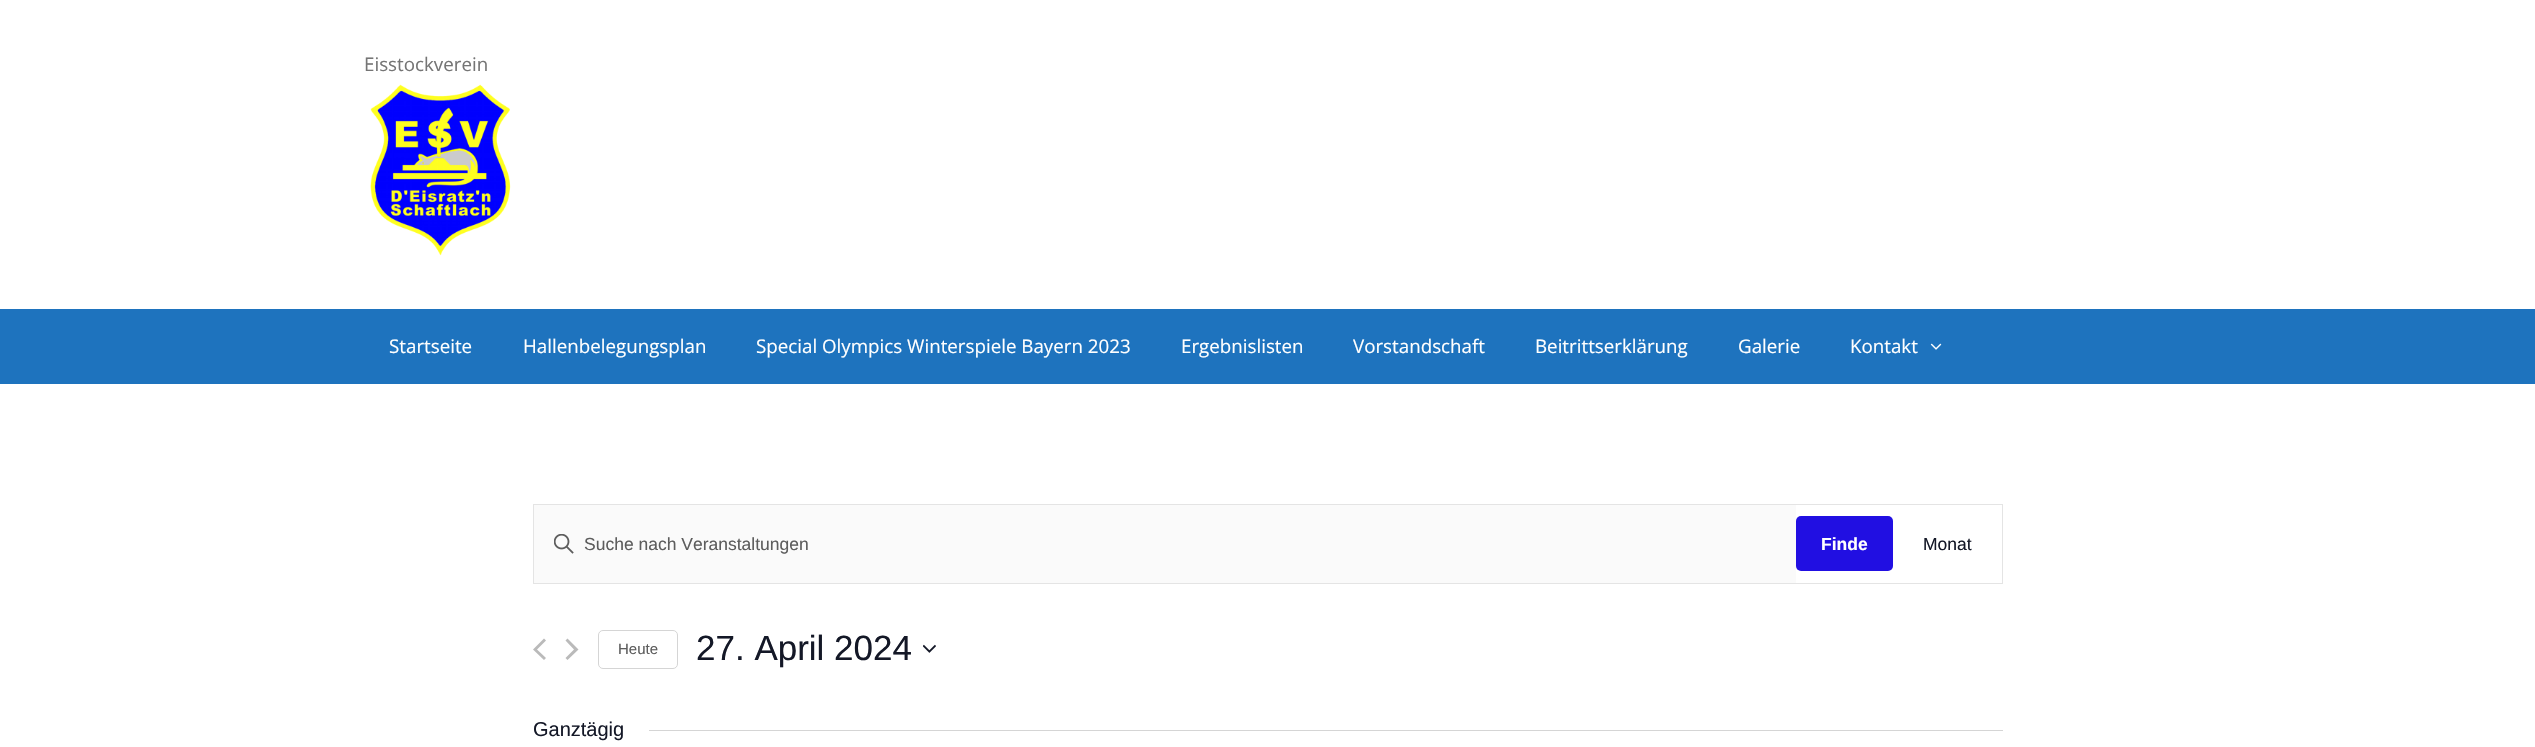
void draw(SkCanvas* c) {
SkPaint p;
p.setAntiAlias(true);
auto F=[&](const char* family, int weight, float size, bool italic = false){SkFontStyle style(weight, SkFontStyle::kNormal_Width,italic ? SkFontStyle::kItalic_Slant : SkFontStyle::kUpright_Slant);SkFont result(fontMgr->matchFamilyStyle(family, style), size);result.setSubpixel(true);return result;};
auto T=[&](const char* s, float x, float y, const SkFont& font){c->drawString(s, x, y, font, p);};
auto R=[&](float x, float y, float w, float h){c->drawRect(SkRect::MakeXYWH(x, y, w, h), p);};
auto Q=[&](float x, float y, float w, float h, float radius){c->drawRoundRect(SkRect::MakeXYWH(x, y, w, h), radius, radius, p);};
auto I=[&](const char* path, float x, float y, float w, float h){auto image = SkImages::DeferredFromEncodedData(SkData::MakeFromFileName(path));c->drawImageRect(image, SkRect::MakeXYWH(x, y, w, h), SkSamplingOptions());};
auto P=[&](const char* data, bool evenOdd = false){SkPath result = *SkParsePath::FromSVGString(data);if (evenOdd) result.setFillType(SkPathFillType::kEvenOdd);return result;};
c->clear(0xffffffff);
auto f1 = F("Open Sans",400,18.75);
p.setColor(0xff757575);
T("Eisstockverein",364,71,f1);
I("1.png",370,84,141,172);
p.setColor(0xff1e73be);
R(0,309,2535,75);
p.setColor(0xffffffff);
T("Startseite",389,353,f1);
T("Hallenbelegungsplan",523,353,f1);
T("Special Olympics Winterspiele Bayern 2023",756,353,f1);
T("Ergebnislisten",1181,353,f1);
T("Vorstandschaft",1353,353,f1);
T("Beitrittserklärung",1535,353,f1);
T("Galerie",1738,353,f1);
T("Kontakt",1850,353,f1);
I("2.png",1930,343,12,7);
p.setStroke(true);
p.setStrokeWidth(1);
p.setColor(0xffe4e4e4);
c->drawRect(SkRect::MakeXYWH(533.5,504.5,1469,79),p);
p.setStroke(false);
p.setColor(0xfffafafa);
R(534,505,1262,78);
I("3.png",554,534,20,20);
auto f2 = F("Liberation Sans",400,17.5);
p.setColor(0xff5d5d5d);
T("Suche nach Veranstaltungen",584,550,f2);
p.setColor(0xff210fe2);
Q(1796,516,97,55,5);
auto f3 = F("Liberation Sans",700,17.5);
p.setColor(0xffffffff);
T("Finde",1821,550,f3);
p.setColor(0xff141827);
T("Monat",1923,550,f2);
p.setColor(0xffbababa);
c->drawPath(P("M546 658l-2 2l-11-10.5l11-11l2 2l-9 9zm19.5-17.5l2-2l11 11l-11 10.5l-2-2l8.5-8.5z"),p);
p.setStroke(true);
p.setColor(0xffd5d5d5);
c->drawRoundRect(SkRect::MakeXYWH(598.5,630.5,79,38),4.5,4.5,p);
auto f4 = F("Liberation Sans",400,15);
p.setStroke(false);
p.setColor(0xff5d5d5d);
T("Heute",618,654,f4);
auto f5 = F("Liberation Sans",400,35);
p.setColor(0xff141827);
T("27. April 2024",696,660,f5);
I("4.png",923,644,13,9);
auto f6 = F("Liberation Sans",400,20);
T("Ganztägig",533,736,f6);
p.setColor(0xffd5d5d5);
R(649,730,1354,1);
}
